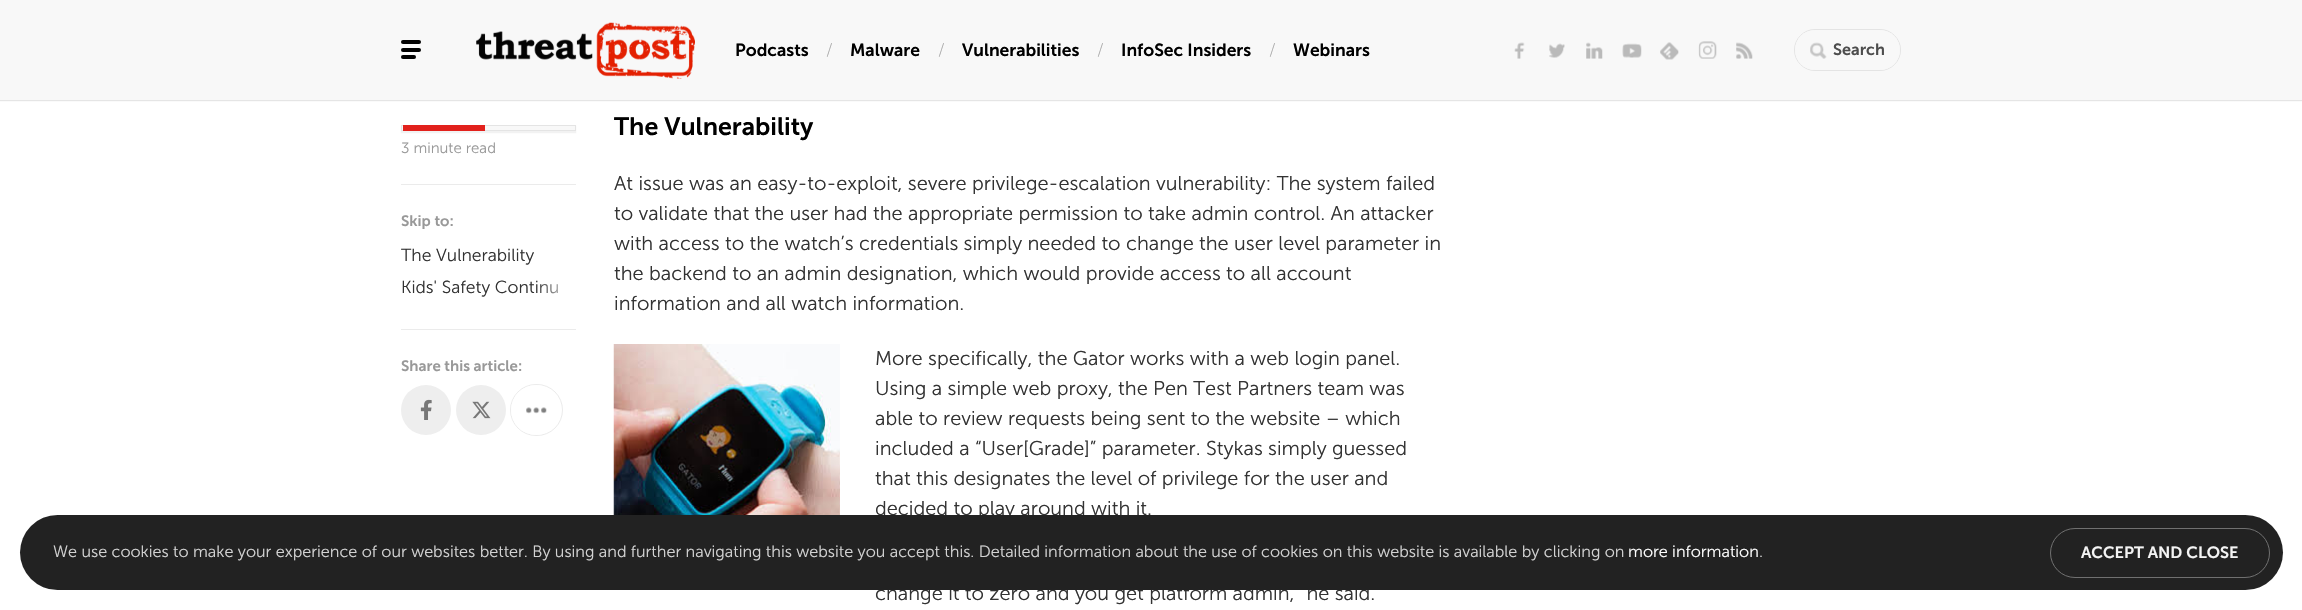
void draw(SkCanvas* c) {
SkPaint p;
p.setAntiAlias(true);
auto F=[&](const char* family, int weight, float size, bool italic = false){SkFontStyle style(weight, SkFontStyle::kNormal_Width,italic ? SkFontStyle::kItalic_Slant : SkFontStyle::kUpright_Slant);SkFont result(fontMgr->matchFamilyStyle(family, style), size);result.setSubpixel(true);return result;};
auto T=[&](const char* s, float x, float y, const SkFont& font){c->drawString(s, x, y, font, p);};
auto R=[&](float x, float y, float w, float h){c->drawRect(SkRect::MakeXYWH(x, y, w, h), p);};
auto Q=[&](float x, float y, float w, float h, float radius){c->drawRoundRect(SkRect::MakeXYWH(x, y, w, h), radius, radius, p);};
auto I=[&](const char* path, float x, float y, float w, float h){auto image = SkImages::DeferredFromEncodedData(SkData::MakeFromFileName(path));c->drawImageRect(image, SkRect::MakeXYWH(x, y, w, h), SkSamplingOptions());};
c->clear(0xffffffff);
p.setColor(0x1a000000);
p.setMaskFilter(SkMaskFilter::MakeBlur(kNormal_SkBlurStyle, .5));
c->drawRect(SkRect::MakeXYWH(0,1,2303,100),p);
p.setMaskFilter(nullptr);
p.setColor(0xfff8f8f8);
R(0,0,2302,100);
p.setColor(0xff000000);
Q(401,40,20,4,2);
Q(401,48,20,4,2);
Q(401,55,15,4,2);
I("1.png",476,22,219,57);
auto f1 = F("Museo Sans",600,17.5);
T("Podcasts",735,56,f1);
auto f2 = F("Museo Sans",200,17.5);
p.setColor(0xffaaaaaa);
T("/",826,56,f2);
p.setColor(0xff000000);
T("Malware",850,56,f1);
p.setColor(0xffaaaaaa);
T("/",938,56,f2);
p.setColor(0xff000000);
T("Vulnerabilities",962,56,f1);
p.setColor(0xffaaaaaa);
T("/",1097,56,f2);
p.setColor(0xff000000);
T("InfoSec Insiders",1121,56,f1);
p.setColor(0xffaaaaaa);
T("/",1269,56,f2);
p.setColor(0xff000000);
T("Webinars",1293,56,f1);
I("2.png",1514,42,11,17);
I("3.png",1549,43,16,15);
I("4.png",1586,42,17,17);
I("5.png",1622,43,20,15);
I("6.png",1660,42,19,18);
I("7.png",1698,41,19,18);
I("8.png",1736,42,17,17);
p.setStroke(true);
p.setStrokeWidth(1);
p.setColor(0xffe4e4e4);
c->drawRoundRect(SkRect::MakeXYWH(1794.5,29.5,106,41),20.5,20.5,p);
p.setStroke(false);
p.setColor(0xfff8f8f8);
Q(1795,30,105,40,20);
I("9.png",1810,42,17,17);
auto f3 = F("Museo Sans",600,16.25);
p.setColor(0xff4d4d4d);
T("Search",1833,55,f3);
p.setColor(0x0d000000);
p.setMaskFilter(SkMaskFilter::MakeBlur(kNormal_SkBlurStyle, .5));
c->drawRect(SkRect::MakeXYWH(401,126,175,7),p);
p.setMaskFilter(nullptr);
p.setColor(0xfff8f8f8);
c->drawRect(SkRect::MakeXYWH(401.5,125.5,174,5),p);
p.setStroke(true);
p.setColor(0xffe4e4e4);
c->drawRect(SkRect::MakeXYWH(401.5,125.5,174,5),p);
p.setStroke(false);
p.setColor(0xffe2211c);
R(403,125,82,6);
auto f4 = F("Museo Sans",300,15);
p.setColor(0xff999999);
T("3 minute read",401,153,f4);
p.setColor(0xffebebeb);
R(401,184,175,1);
auto f5 = F("Museo Sans",600,15);
p.setColor(0xff999999);
T("Skip to:",401,226,f5);
auto f6 = F("Museo Sans",300,17.5);
p.setColor(0xff333333);
T("The Vulnerability",401,261,f6);
T("Kids' Safety Continu",401,293,f6);
{
const SkColor colors[] = {0x00ffffff,0xffffffff};
const float stops[] = {0,1};
const SkPoint ends[] = {{536,288}, {576,288}};
p.setShader(SkGradientShader::MakeLinear(ends, colors, stops, 2, SkTileMode::kClamp));
p.setAlpha(255);
}
R(537,281,22,13);
p.setShader(nullptr);
p.setColor(0xffebebeb);
R(401,329,175,1);
p.setColor(0xff999999);
T("Share this article:",401,371,f5);
p.setColor(0xffeeeeee);
c->drawCircle(426,410,25,p);
I("10.png",420,399,12,21);
c->drawCircle(481,410,25,p);
I("11.png",472,401,19,18);
p.setStroke(true);
p.setColor(0xffebebeb);
c->drawRoundRect(SkRect::MakeXYWH(510.5,384.5,52,51),25.5,25.5,p);
p.setStroke(false);
p.setColor(0xffffffff);
c->drawCircle(536,410,25,p);
I("12.png",526,407,21,7);
auto f7 = F("Museo Sans",600,25);
p.setColor(0xff000000);
T("The Vulnerability",614,135,f7);
auto f8 = F("Museo Sans",300,20);
p.setColor(0xff333333);
T("At issue was an easy-to-exploit, severe privilege-escalation vulnerability: The system failed",614,190,f8);
T("to validate that the user had the appropriate permission to take admin control. An attacker",614,220,f8);
T("with access to the watch’s credentials simply needed to change the user level parameter in",614,250,f8);
T("the backend to an admin designation, which would provide access to all account",614,280,f8);
T("information and all watch information.",614,310,f8);
I("13.png",613,344,227,171);
T("More specifically, the Gator works with a web login panel.",875,365,f8);
T("Using a simple web proxy, the Pen Test Partners team was",875,395,f8);
T("able to review requests being sent to the website – which",875,425,f8);
T("included a “User[Grade]” parameter. Stykas simply guessed",875,455,f8);
T("that this designates the level of privilege for the user and",875,485,f8);
T("decided to play around with it.",875,515,f8);
T("change it to zero and you get platform admin,” he said.",875,600,f8);
p.setColor(0xff222222);
Q(20,515,2263,75,37.5);
auto f9 = F("Museo Sans",300,16.25);
p.setColor(0xffd3d3d3);
T("We use cookies to make your experience of our websites better. By using and further navigating this website you accept this. Detailed information about the use of cookies on this website is available by clicking on",53,557,f9);
p.setColor(0xffffffff);
T("more information",1628,557,f9);
p.setColor(0xffd3d3d3);
T(".",1759,557,f9);
p.setStroke(true);
p.setColor(0xff707070);
c->drawRoundRect(SkRect::MakeXYWH(2050.5,528.5,219,49),24.5,24.5,p);
p.setStroke(false);
p.setColor(0xfff4f4f4);
T("ACCEPT AND CLOSE",2081,558,f3);
}
